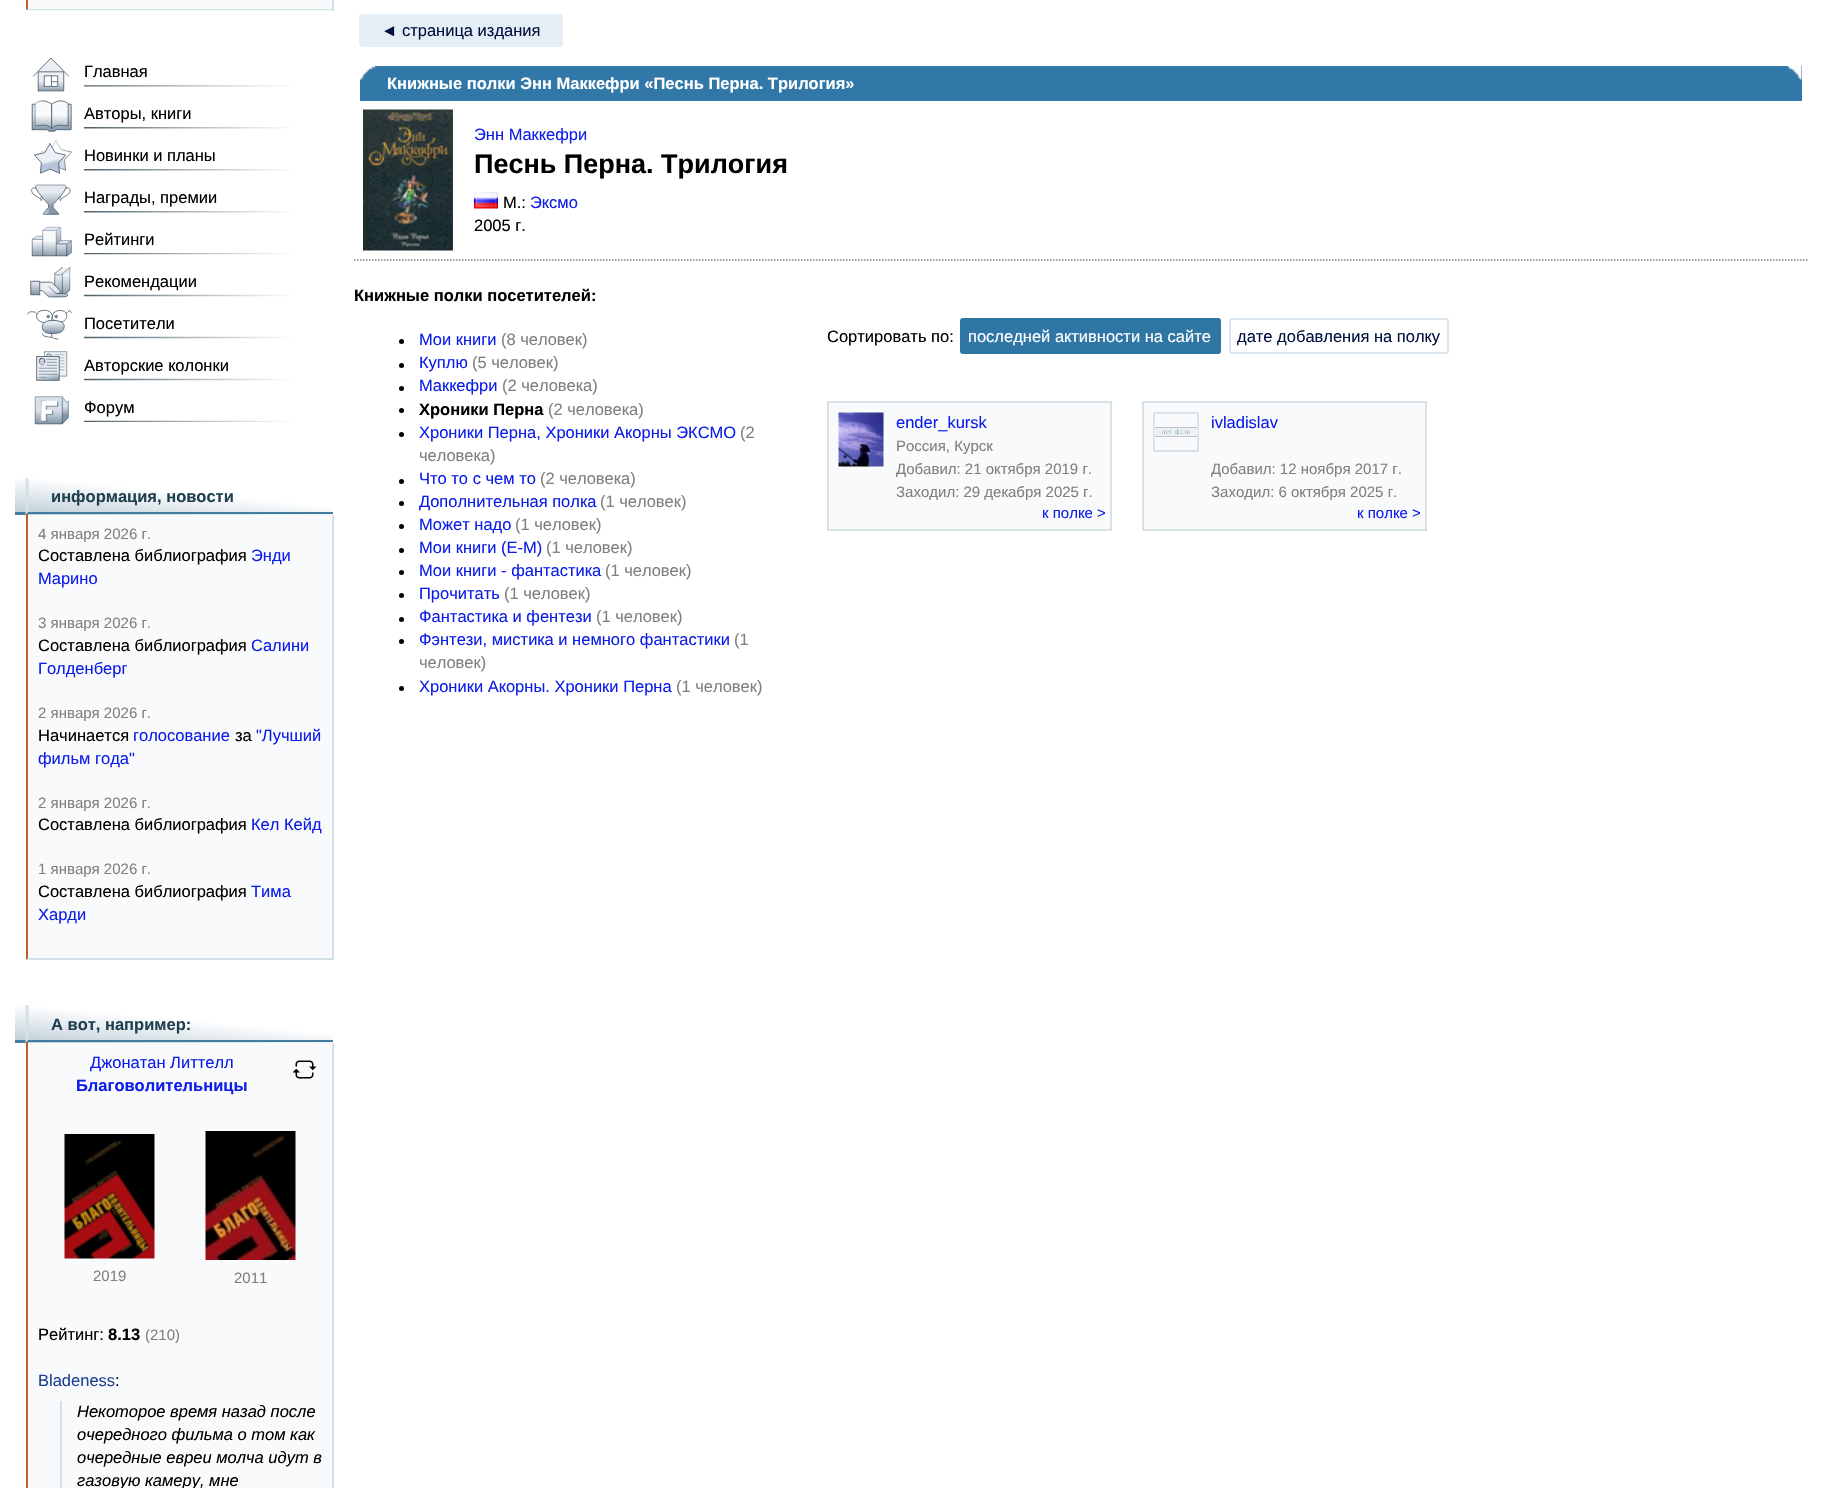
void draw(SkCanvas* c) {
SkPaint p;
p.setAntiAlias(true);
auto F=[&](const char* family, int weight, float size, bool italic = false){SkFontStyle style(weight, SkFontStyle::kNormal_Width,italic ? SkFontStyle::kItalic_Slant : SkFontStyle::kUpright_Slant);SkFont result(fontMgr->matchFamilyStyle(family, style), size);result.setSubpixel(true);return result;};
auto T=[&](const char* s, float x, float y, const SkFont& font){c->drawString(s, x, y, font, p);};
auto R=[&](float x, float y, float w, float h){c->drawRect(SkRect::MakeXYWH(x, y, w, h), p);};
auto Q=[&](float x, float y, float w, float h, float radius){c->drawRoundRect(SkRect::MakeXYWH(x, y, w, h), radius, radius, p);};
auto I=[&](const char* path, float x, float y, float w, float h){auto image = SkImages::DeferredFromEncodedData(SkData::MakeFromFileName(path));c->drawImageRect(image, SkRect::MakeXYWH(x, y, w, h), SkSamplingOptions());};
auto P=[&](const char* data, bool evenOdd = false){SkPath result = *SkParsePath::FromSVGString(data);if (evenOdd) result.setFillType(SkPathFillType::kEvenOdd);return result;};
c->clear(0xffffffff);
p.setColor(0xfff9fafb);
R(26,0,306,11);
p.setColor(0xffd2e0e8);
R(332,0,2,11);
c->drawPath(P("M333 10h-307l2-1h304z"),p);
p.setColor(0xffc45e24);
c->drawPath(P("M26 10v-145h2v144z"),p);
I("1.png",32,58,259,34);
auto f1 = F("Liberation Sans",400,16.5);
p.setColor(0xff000000);
T("Главная",84,77,f1);
I("2.png",31,100,261,32);
T("Авторы, книги",84,119,f1);
I("3.png",34,140,258,34);
T("Новинки и планы",84,161,f1);
I("4.png",31,184,261,31);
T("Награды, премии",84,203,f1);
I("5.png",31,226,261,31);
T("Рейтинги",84,245,f1);
I("6.png",30,266,262,32);
T("Рекомендации",84,287,f1);
I("7.png",27,309,265,31);
T("Посетители",84,329,f1);
I("8.png",36,351,256,30);
T("Авторские колонки",84,371,f1);
I("9.png",34,396,258,29);
T("Форум",84,413,f1);
{
const SkColor colors[] = {0xffc0cfd8,0xffffffff};
const float stops[] = {0,.59};
const SkPoint ends[] = {{171,528}, {177,465}};
p.setShader(SkGradientShader::MakeLinear(ends, colors, stops, 2, SkTileMode::kClamp));
p.setAlpha(255);
}
R(15,479,318,36);
p.setShader(nullptr);
p.setColor(0xff447ca1);
c->drawPath(P("M333 514h-307l2-2h305z"),p);
R(15,512,11,3);
p.setColor(0xffd2e0e8);
c->drawPath(P("M25.5 514.5v-36h3v33z"),p);
auto f2 = F("Liberation Sans",700,16.5);
p.setColor(0xff204050);
T("информация, новости",51,502,f2);
p.setColor(0xfff9fafb);
R(26,515,306,445);
p.setColor(0xffd2e0e8);
R(332,515,2,445);
c->drawPath(P("M333 960h-307l2-2h304z"),p);
p.setColor(0xffc45e24);
c->drawPath(P("M26 960v-446h2v444z"),p);
auto f3 = F("Liberation Sans",400,15);
p.setColor(0xff808080);
T("4 января 2026 г.",38,539,f3);
p.setColor(0xff000000);
T("Составлена библиография",38,561,f1);
p.setColor(0xff0c1de9);
T("Энди",251,561,f1);
T("Марино",38,584,f1);
p.setColor(0xff808080);
T("3 января 2026 г.",38,628,f3);
p.setColor(0xff000000);
T("Составлена библиография",38,651,f1);
p.setColor(0xff0c1de9);
T("Салини",251,651,f1);
T("Голденберг",38,674,f1);
p.setColor(0xff808080);
T("2 января 2026 г.",38,718,f3);
p.setColor(0xff000000);
T("Начинается",38,741,f1);
p.setColor(0xff0c1de9);
T("голосование",133,741,f1);
p.setColor(0xff000000);
T("за",235,741,f1);
p.setColor(0xff0c1de9);
T("\"Лучший",256,741,f1);
T("фильм года\"",38,764,f1);
p.setColor(0xff808080);
T("2 января 2026 г.",38,808,f3);
p.setColor(0xff000000);
T("Составлена библиография",38,830,f1);
p.setColor(0xff0c1de9);
T("Кел Кейд",251,830,f1);
p.setColor(0xff808080);
T("1 января 2026 г.",38,874,f3);
p.setColor(0xff000000);
T("Составлена библиография",38,897,f1);
p.setColor(0xff0c1de9);
T("Тима",251,897,f1);
T("Харди",38,920,f1);
{
const SkColor colors[] = {0xffc0cfd8,0xffffffff};
const float stops[] = {0,.58};
const SkPoint ends[] = {{171,1056}, {177,991}};
p.setShader(SkGradientShader::MakeLinear(ends, colors, stops, 2, SkTileMode::kClamp));
p.setAlpha(255);
}
R(15,1005,318,38);
p.setShader(nullptr);
p.setColor(0xff447ca1);
c->drawPath(P("M333 1042h-307l2-2h305z"),p);
R(15,1040,11,3);
p.setColor(0xffd2e0e8);
c->drawPath(P("M25.5 1042.5v-37.5h3v34.5z"),p);
p.setColor(0xff204050);
T("А вот, например:",51,1030,f2);
p.setColor(0xfff9fafb);
R(28,1043,304,445);
p.setColor(0xffd2e0e8);
R(332,1043,2,445);
p.setColor(0xffc45e24);
c->drawPath(P("M26 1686v-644h2v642z"),p);
p.setColor(0xff0c1de9);
T("Джонатан Литтелл",90,1068,f1);
I("10.png",293,1060,24,19);
T("Благоволительницы",76,1091,f2);
I("11.png",64,1134,91,125);
p.setColor(0xff808080);
T("2019",93,1281,f3);
I("12.png",205,1131,91,129);
T("2011",234,1283,f3);
p.setColor(0xff000000);
T("Рейтинг:",38,1340,f1);
T("8.13",108,1340,f2);
p.setColor(0xff808080);
T("(210)",145,1340,f3);
p.setColor(0xff204090);
T("Bladeness",38,1386,f1);
p.setColor(0xff000000);
T(":",115,1386,f1);
p.setColor(0xffd2e0e8);
R(60,1401,2,87);
auto f4 = F("Liberation Sans",400,16.5,true);
p.setColor(0xff000000);
T("Некоторое время назад после",77,1417,f4);
T("очередного фильма о том как",77,1440,f4);
T("очередные евреи молча идут в",77,1463,f4);
T("газовую камеру, мне",77,1486,f4);
p.setColor(0xffe6eef5);
Q(359,14,204,33,3);
p.setColor(0xff001040);
T("◄ страница издания",381,36,f1);
p.setColor(0xff3178a8);
R(360,66,1442,35);
I("13.png",360,66,16,14);
I("14.png",1787,66,15,14);
p.setColor(0xffffffff);
T("Книжные полки Энн Маккефри «Песнь Перна. Трилогия»",387,89,f2);
p.setStroke(true);
p.setStrokeWidth(1.5);
p.setColor(0xff808080);
p.setPathEffect(SkDashPathEffect::Make({{1.5f,1.5f}}, 0));
c->drawPath(P("M354 260h1453.5"),p);
p.setPathEffect(nullptr);
I("15.png",363,109,90,142);
p.setStroke(false);
p.setColor(0xff0c1de9);
T("Энн Маккефри",474,140,f1);
auto f5 = F("Liberation Sans",700,27);
p.setColor(0xff000000);
T("Песнь Перна. Трилогия",474,173,f5);
I("16.png",474,192,24,17);
T("М.:",503,208,f1);
p.setColor(0xff0c1de9);
T("Эксмо",530,208,f1);
p.setColor(0xff000000);
T("2005 г.",474,231,f1);
T("Книжные полки посетителей:",354,301,f2);
c->drawCircle(401.5,341.5,2.5,p);
p.setColor(0xff0c1de9);
T("Мои книги",419,345,f1);
p.setColor(0xff808080);
T("(8 человек)",501,345,f1);
p.setColor(0xff000000);
c->drawCircle(401.5,365.5,2.5,p);
p.setColor(0xff0c1de9);
T("Куплю",419,368,f1);
p.setColor(0xff808080);
T("(5 человек)",472,368,f1);
p.setColor(0xff000000);
c->drawCircle(401.5,388.5,2.5,p);
p.setColor(0xff0c1de9);
T("Маккефри",419,391,f1);
p.setColor(0xff808080);
T("(2 человека)",502,391,f1);
p.setColor(0xff000000);
c->drawCircle(401.5,410.5,2.5,p);
T("Хроники Перна",419,415,f2);
p.setColor(0xff808080);
T("(2 человека)",548,415,f1);
p.setColor(0xff000000);
c->drawCircle(401.5,434.5,2.5,p);
p.setColor(0xff0c1de9);
T("Хроники Перна, Хроники Акорны ЭКСМО",419,438,f1);
p.setColor(0xff808080);
T("(2",740,438,f1);
T("человека)",419,461,f1);
p.setColor(0xff000000);
c->drawCircle(401.5,481.5,2.5,p);
p.setColor(0xff0c1de9);
T("Что то с чем то",419,484,f1);
p.setColor(0xff808080);
T("(2 человека)",540,484,f1);
p.setColor(0xff000000);
c->drawCircle(401.5,503.5,2.5,p);
p.setColor(0xff0c1de9);
T("Дополнительная полка",419,507,f1);
p.setColor(0xff808080);
T("(1 человек)",600,507,f1);
p.setColor(0xff000000);
c->drawCircle(401.5,526.5,2.5,p);
p.setColor(0xff0c1de9);
T("Может надо",419,530,f1);
p.setColor(0xff808080);
T("(1 человек)",515,530,f1);
p.setColor(0xff000000);
c->drawCircle(401.5,550.5,2.5,p);
p.setColor(0xff0c1de9);
T("Мои книги (Е-М)",419,553,f1);
p.setColor(0xff808080);
T("(1 человек)",546,553,f1);
p.setColor(0xff000000);
c->drawCircle(401.5,572.5,2.5,p);
p.setColor(0xff0c1de9);
T("Мои книги - фантастика",419,576,f1);
p.setColor(0xff808080);
T("(1 человек)",605,576,f1);
p.setColor(0xff000000);
c->drawCircle(401.5,595.5,2.5,p);
p.setColor(0xff0c1de9);
T("Прочитать",419,599,f1);
p.setColor(0xff808080);
T("(1 человек)",504,599,f1);
p.setColor(0xff000000);
c->drawCircle(401.5,619.5,2.5,p);
p.setColor(0xff0c1de9);
T("Фантастика и фентези",419,622,f1);
p.setColor(0xff808080);
T("(1 человек)",596,622,f1);
p.setColor(0xff000000);
c->drawCircle(401.5,641.5,2.5,p);
p.setColor(0xff0c1de9);
T("Фэнтези, мистика и немного фантастики",419,645,f1);
p.setColor(0xff808080);
T("(1",734,645,f1);
T("человек)",419,668,f1);
p.setColor(0xff000000);
c->drawCircle(401.5,688.5,2.5,p);
p.setColor(0xff0c1de9);
T("Хроники Акорны. Хроники Перна",419,692,f1);
p.setColor(0xff808080);
T("(1 человек)",676,692,f1);
p.setColor(0xff000000);
T("Сортировать по:",827,342,f1);
p.setColor(0xff3076a5);
c->drawRoundRect(SkRect::MakeXYWH(961,319,259,34),2,2,p);
p.setStroke(true);
p.setStrokeWidth(2);
c->drawRoundRect(SkRect::MakeXYWH(961,319,259,34),2,2,p);
p.setStroke(false);
p.setColor(0xffffffff);
T("последней активности на сайте",968,342,f1);
p.setStroke(true);
p.setColor(0xffd8e4ee);
c->drawRoundRect(SkRect::MakeXYWH(1230,319,218,34),2,2,p);
p.setStroke(false);
p.setColor(0xff001040);
T("дате добавления на полку",1237,342,f1);
p.setColor(0xfff9fafb);
c->drawRect(SkRect::MakeXYWH(828,402,283,128),p);
p.setStroke(true);
p.setColor(0xffd8e1e6);
c->drawRect(SkRect::MakeXYWH(828,402,283,128),p);
I("17.png",838,412,46,55);
p.setStroke(false);
p.setColor(0xff0c1de9);
T("ender_kursk",896,428,f1);
p.setColor(0xff808080);
T("Россия, Курск",896,451,f3);
T("Добавил: 21 октября 2019 г.",896,474,f3);
T("Заходил: 29 декабря 2025 г.",896,497,f3);
p.setColor(0xff0c1de9);
T("к полке >",1042,518,f3);
p.setColor(0xfff9fafb);
c->drawRect(SkRect::MakeXYWH(1143,402,283,128),p);
p.setStroke(true);
p.setColor(0xffd8e1e6);
c->drawRect(SkRect::MakeXYWH(1143,402,283,128),p);
I("18.png",1153,412,46,40);
p.setStroke(false);
p.setColor(0xff0c1de9);
T("ivladislav",1211,428,f1);
p.setColor(0xff808080);
T("Добавил: 12 ноября 2017 г.",1211,474,f3);
T("Заходил: 6 октября 2025 г.",1211,497,f3);
p.setColor(0xff0c1de9);
T("к полке >",1357,518,f3);
}
